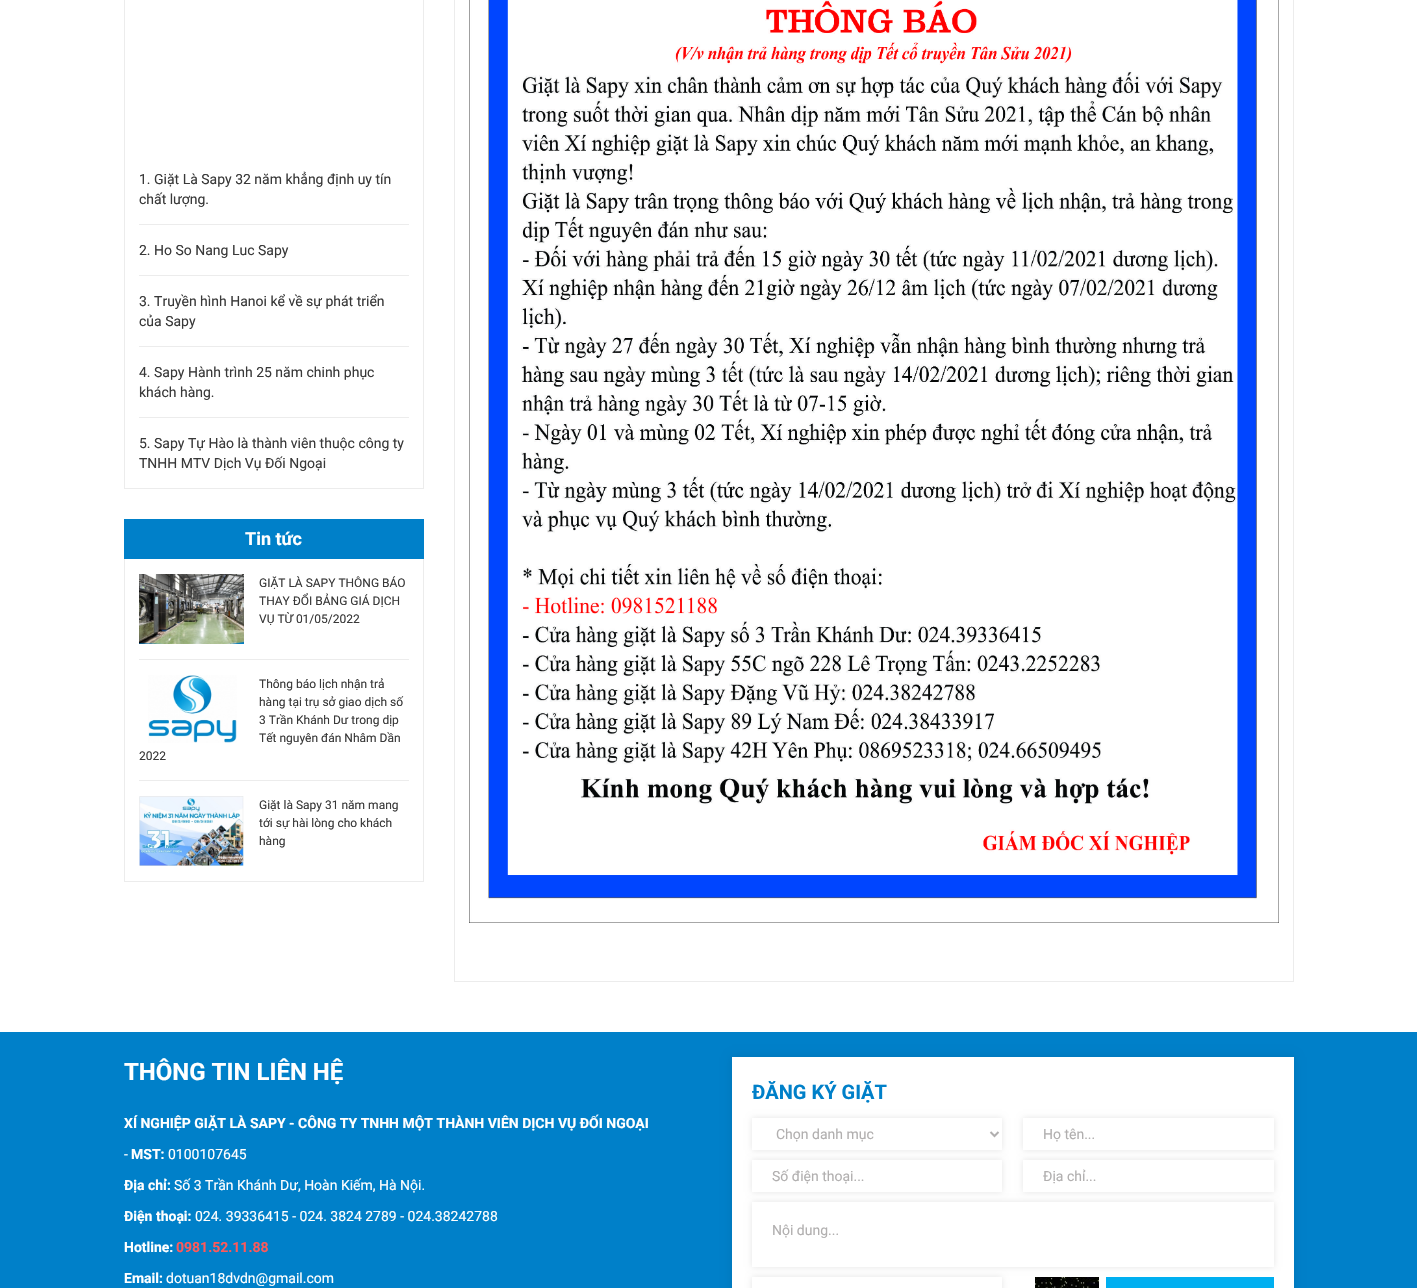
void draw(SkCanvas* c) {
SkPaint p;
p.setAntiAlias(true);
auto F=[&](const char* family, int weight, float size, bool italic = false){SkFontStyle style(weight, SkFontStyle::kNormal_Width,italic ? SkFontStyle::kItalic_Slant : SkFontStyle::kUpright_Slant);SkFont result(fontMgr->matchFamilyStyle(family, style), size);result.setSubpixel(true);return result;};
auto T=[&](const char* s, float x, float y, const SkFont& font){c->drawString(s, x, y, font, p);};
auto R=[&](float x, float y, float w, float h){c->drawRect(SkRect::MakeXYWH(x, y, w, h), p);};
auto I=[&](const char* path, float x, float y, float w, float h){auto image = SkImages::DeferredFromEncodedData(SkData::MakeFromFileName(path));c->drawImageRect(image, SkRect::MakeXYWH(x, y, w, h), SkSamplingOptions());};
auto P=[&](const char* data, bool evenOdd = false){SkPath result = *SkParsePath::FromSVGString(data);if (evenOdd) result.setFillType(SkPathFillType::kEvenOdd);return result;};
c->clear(0xffffffff);
p.setColor(0xffececec);
R(423,0,1,489);
R(124,488,300,1);
R(124,0,1,489);
auto f1 = F("Roboto",400,14);
p.setColor(0xff393939);
T("1. Giặt Là Sapy 32 năm khẳng định uy tín",139,184,f1);
T("chất lượng.",139,204,f1);
p.setColor(0xffececec);
R(139,224,270,1);
p.setColor(0xff393939);
T("2. Ho So Nang Luc Sapy",139,255,f1);
p.setColor(0xffececec);
R(139,275,270,1);
p.setColor(0xff393939);
T("3. Truyền hình Hanoi kể về sự phát triển",139,306,f1);
T("của Sapy",139,326,f1);
p.setColor(0xffececec);
R(139,346,270,1);
p.setColor(0xff393939);
T("4. Sapy Hành trình 25 năm chinh phục",139,377,f1);
T("khách hàng.",139,397,f1);
p.setColor(0xffececec);
R(139,417,270,1);
p.setColor(0xff393939);
T("5. Sapy Tự Hào là thành viên thuộc công ty",139,448,f1);
T("TNHH MTV Dịch Vụ Đối Ngoại",139,468,f1);
p.setColor(0xff0080c9);
R(124,519,300,40);
auto f2 = F("Roboto",700,18);
p.setColor(0xffffffff);
T("Tin tức",245,545,f2);
p.setColor(0xffececec);
R(423,559,1,323);
R(124,881,300,1);
R(124,559,1,323);
I("1.png",139,574,105,70);
auto f3 = F("Roboto",400,12);
p.setColor(0xff393939);
T("GIẶT LÀ SAPY THÔNG BÁO",259,587,f3);
T("THAY ĐỔI BẢNG GIÁ DỊCH",259,605,f3);
T("VỤ TỪ 01/05/2022",259,623,f3);
p.setColor(0xffececec);
R(139,659,270,1);
I("2.png",148,675,89,68);
p.setColor(0xff393939);
T("Thông báo lịch nhận trả",259,688,f3);
T("hàng tại trụ sở giao dịch số",259,706,f3);
T("3 Trần Khánh Dư trong dịp",259,724,f3);
T("Tết nguyên đán Nhâm Dần",259,742,f3);
T("2022",139,760,f3);
p.setColor(0xffececec);
R(139,780,270,1);
I("3.png",139,796,105,70);
p.setColor(0xff393939);
T("Giặt là Sapy 31 năm mang",259,809,f3);
T("tới sự hài lòng cho khách",259,827,f3);
T("hàng",259,845,f3);
p.setStroke(true);
p.setStrokeWidth(1);
p.setColor(0xffececec);
c->drawRect(SkRect::MakeXYWH(454.5,-.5,839,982),p);
I("4.png",469,0,810,923);
p.setStroke(false);
p.setColor(0xff0080c9);
R(0,1032,1417,256);
auto f4 = F("Roboto",700,24);
p.setColor(0xffffffff);
T("THÔNG TIN LIÊN HỆ",124,1080,f4);
auto f5 = F("Roboto",700,14);
T("XÍ NGHIỆP GIẶT LÀ SAPY - CÔNG TY TNHH MỘT THÀNH VIÊN DỊCH VỤ ĐỐI NGOẠI",124,1128,f5);
T("-",124,1159,f1);
T("MST:",131,1159,f5);
T("0100107645",168,1159,f1);
T("Địa chỉ:",124,1190,f5);
T("Số 3 Trần Khánh Dư, Hoàn Kiếm, Hà Nội.",174,1190,f1);
T("Điện thoại:",124,1221,f5);
T("024. 39336415 - 024. 3824 2789 - 024.38242788",195,1221,f1);
T("Hotline:",124,1252,f5);
p.setColor(0xffff5959);
T("0981.52.11.88",176,1252,f5);
p.setColor(0xffffffff);
T("Email:",124,1283,f5);
T("dotuan18dvdn@gmail.com",166,1283,f1);
p.setColor(0x1a000000);
p.setMaskFilter(SkMaskFilter::MakeBlur(kNormal_SkBlurStyle, 4.5));
c->drawRect(SkRect::MakeXYWH(732,1057,562,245),p);
p.setMaskFilter(nullptr);
p.setColor(0xffffffff);
R(732,1057,562,231);
auto f6 = F("Roboto",700,20);
p.setColor(0xff0080c9);
T("ĐĂNG KÝ GIẶT",752,1099,f6);
c->save();
c->clipPath(P("M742 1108h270v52h-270zm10 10h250v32h-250z",true),true);
p.setColor(0x1a000000);
p.setMaskFilter(SkMaskFilter::MakeBlur(kNormal_SkBlurStyle, 3));
c->drawRect(SkRect::MakeXYWH(752,1118,250,32),p);
p.setMaskFilter(nullptr);
c->restore();
p.setStroke(true);
p.setStrokeWidth(2);
p.setColor(0xffb1afaf);
c->drawPath(P("M990.5 1132l4 4l4-4"),p);
p.setStroke(false);
T("Chọn danh mục",776,1139,f1);
c->save();
c->clipPath(P("M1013 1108h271v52h-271zm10 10h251v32h-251z",true),true);
p.setColor(0x1a000000);
p.setMaskFilter(SkMaskFilter::MakeBlur(kNormal_SkBlurStyle, 3));
c->drawRect(SkRect::MakeXYWH(1023,1118,251,32),p);
p.setMaskFilter(nullptr);
c->restore();
p.setColor(0xffb1afaf);
T("Họ tên...",1043,1139,f1);
c->save();
c->clipPath(P("M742 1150h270v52h-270zm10 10h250v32h-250z",true),true);
p.setColor(0x1a000000);
p.setMaskFilter(SkMaskFilter::MakeBlur(kNormal_SkBlurStyle, 3));
c->drawRect(SkRect::MakeXYWH(752,1160,250,32),p);
p.setMaskFilter(nullptr);
c->restore();
p.setColor(0xffb1afaf);
T("Số điện thoại...",772,1181,f1);
c->save();
c->clipPath(P("M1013 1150h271v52h-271zm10 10h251v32h-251z",true),true);
p.setColor(0x1a000000);
p.setMaskFilter(SkMaskFilter::MakeBlur(kNormal_SkBlurStyle, 3));
c->drawRect(SkRect::MakeXYWH(1023,1160,251,32),p);
p.setMaskFilter(nullptr);
c->restore();
p.setColor(0xffb1afaf);
T("Địa chỉ...",1043,1181,f1);
c->save();
c->clipPath(P("M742 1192h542v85h-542zm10 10h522v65h-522z",true),true);
p.setColor(0x1a000000);
p.setMaskFilter(SkMaskFilter::MakeBlur(kNormal_SkBlurStyle, 3));
c->drawRect(SkRect::MakeXYWH(752,1202,522,65),p);
p.setMaskFilter(nullptr);
c->restore();
p.setColor(0xffb1afaf);
T("Nội dung...",772,1235,f1);
c->save();
c->clipPath(P("M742 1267h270v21h-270zm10 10h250v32h-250z",true),true);
p.setColor(0x1a000000);
p.setMaskFilter(SkMaskFilter::MakeBlur(kNormal_SkBlurStyle, 3));
c->drawRect(SkRect::MakeXYWH(752,1277,250,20),p);
p.setMaskFilter(nullptr);
c->restore();
I("5.png",1035,1277,64,11);
p.setColor(0xff00aff0);
R(1106,1277,168,11);
}
